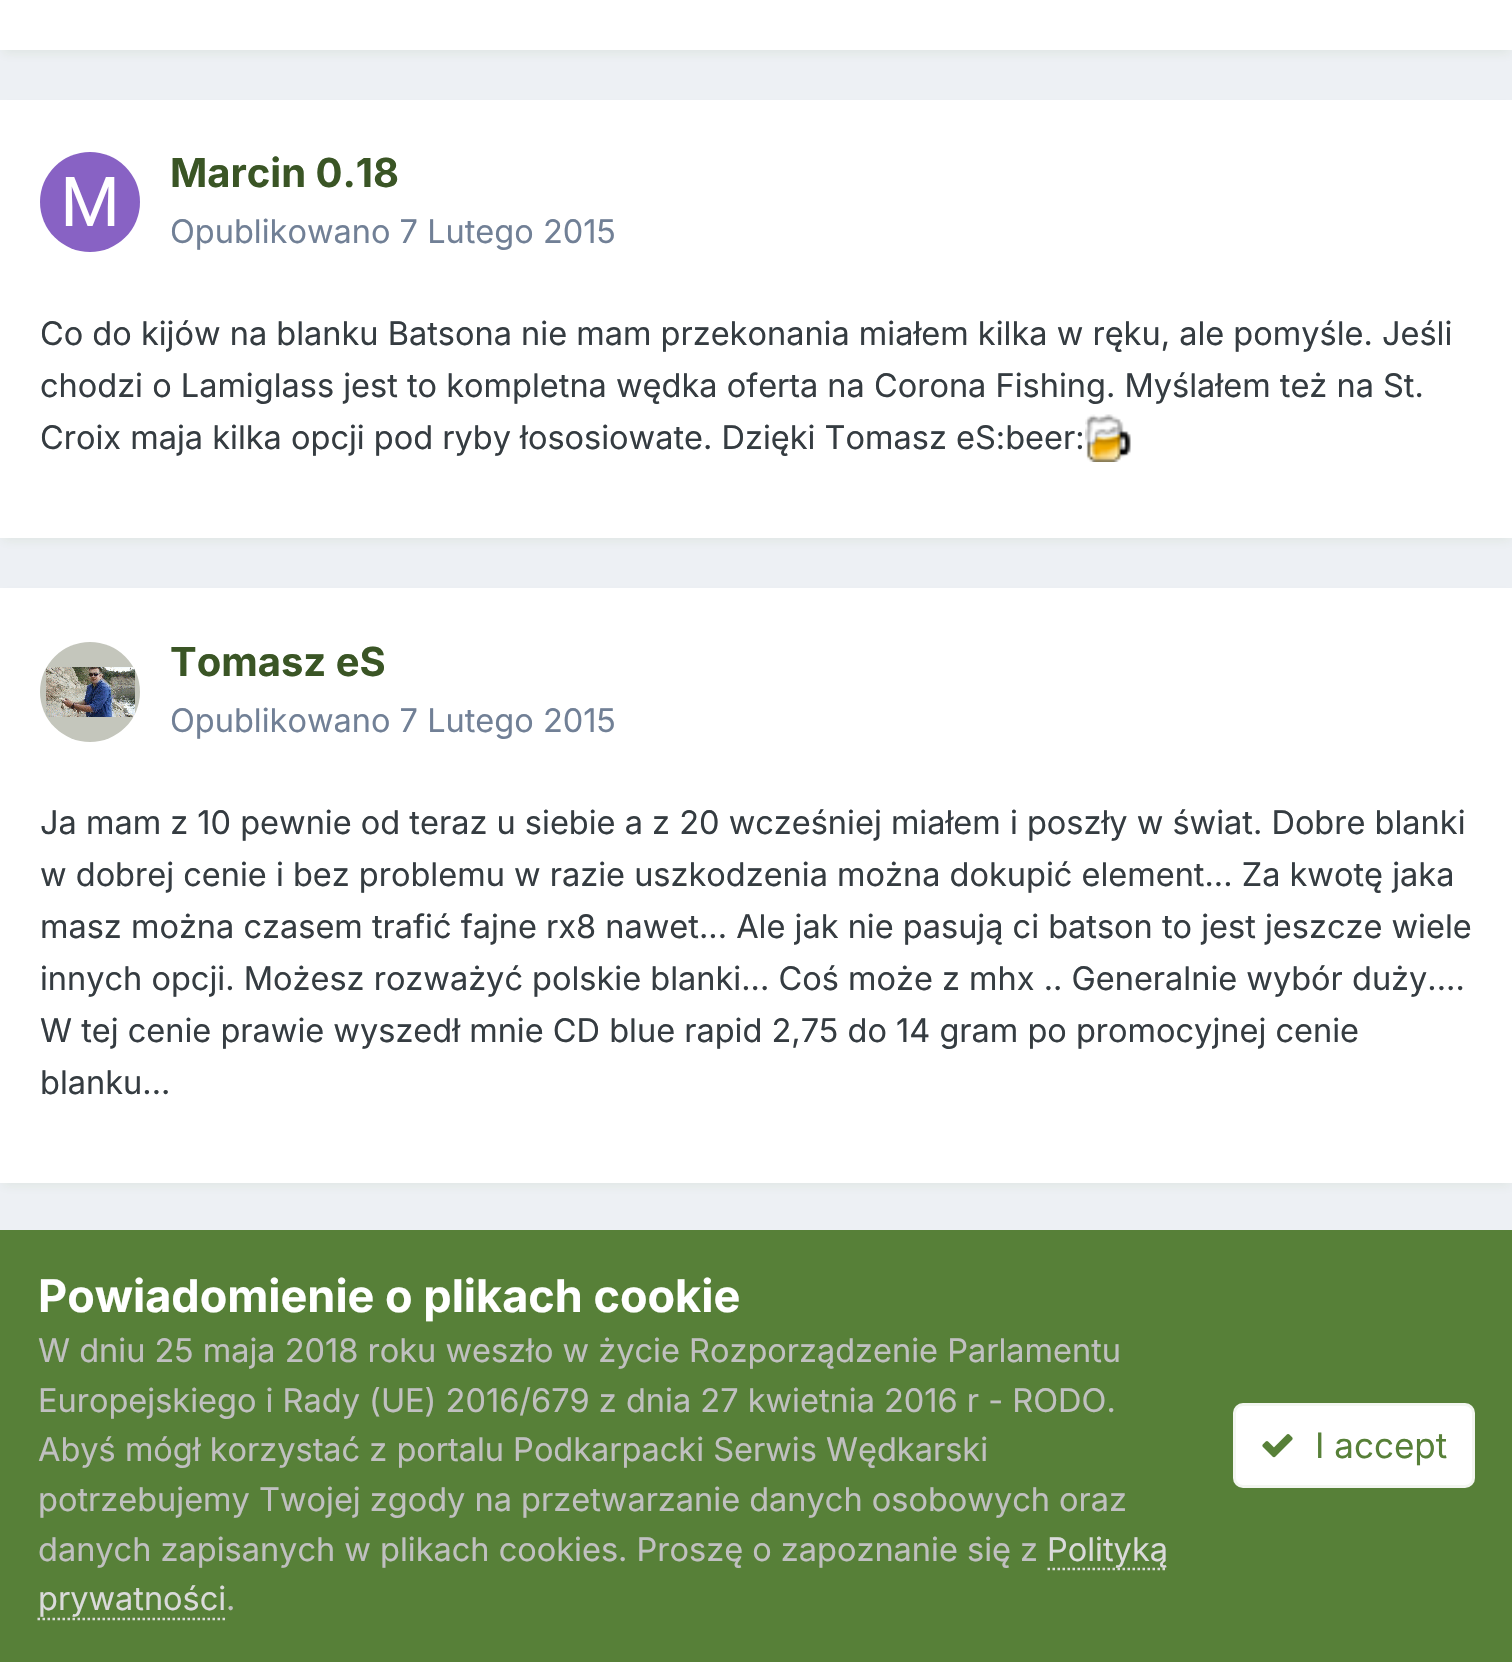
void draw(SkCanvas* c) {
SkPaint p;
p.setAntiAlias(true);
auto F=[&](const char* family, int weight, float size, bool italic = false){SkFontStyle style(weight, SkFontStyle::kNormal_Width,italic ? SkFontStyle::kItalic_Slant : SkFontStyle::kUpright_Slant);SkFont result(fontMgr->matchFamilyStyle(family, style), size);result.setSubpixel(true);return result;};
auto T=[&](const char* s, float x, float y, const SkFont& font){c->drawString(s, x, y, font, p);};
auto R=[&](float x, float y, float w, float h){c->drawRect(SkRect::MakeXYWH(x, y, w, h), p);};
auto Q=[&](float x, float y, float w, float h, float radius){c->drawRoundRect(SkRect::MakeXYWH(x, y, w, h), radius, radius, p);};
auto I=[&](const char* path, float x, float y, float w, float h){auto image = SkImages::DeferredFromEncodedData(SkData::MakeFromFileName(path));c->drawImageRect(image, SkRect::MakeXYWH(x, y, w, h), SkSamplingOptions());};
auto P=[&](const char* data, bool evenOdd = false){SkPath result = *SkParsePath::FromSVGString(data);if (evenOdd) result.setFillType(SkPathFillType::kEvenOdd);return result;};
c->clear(0xffedf0f4);
p.setColor(0x1a578038);
p.setMaskFilter(SkMaskFilter::MakeBlur(kNormal_SkBlurStyle, 5));
c->drawRect(SkRect::MakeXYWH(3,-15,1507,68),p);
p.setMaskFilter(nullptr);
p.setColor(0xffffffff);
R(0,0,1512,50);
p.setColor(0x1a578038);
p.setMaskFilter(SkMaskFilter::MakeBlur(kNormal_SkBlurStyle, 5));
c->drawRect(SkRect::MakeXYWH(3,108,1507,432),p);
p.setMaskFilter(nullptr);
p.setColor(0xffffffff);
R(0,100,1512,438);
I("1.png",40,152,100,100);
auto f1 = F("Inter",700,40);
p.setColor(0xff3a5525);
T("Marcin 0.18",170,187,f1);
auto f2 = F("Inter",400,32.5);
p.setColor(0xff718096);
T("Opublikowano 7 Lutego 2015",170,243,f2);
p.setColor(0xff353c41);
T("Co do kijów na blanku Batsona nie mam przekonania miałem kilka w ręku, ale pomyśle. Jeśli",40,345,f2);
T("chodzi o Lamiglass jest to kompletna wędka oferta na Corona Fishing. Myślałem też na St.",40,397,f2);
T("Croix maja kilka opcji pod ryby łososiowate. Dzięki Tomasz eS:beer:",40,449,f2);
I("2.png",1085,414,46,48);
p.setColor(0x1a578038);
p.setMaskFilter(SkMaskFilter::MakeBlur(kNormal_SkBlurStyle, 5));
c->drawRect(SkRect::MakeXYWH(3,595,1507,590),p);
p.setMaskFilter(nullptr);
p.setColor(0xffffffff);
R(0,588,1512,595);
I("3.png",40,642,100,100);
p.setColor(0xff3a5525);
T("Tomasz eS",170,676,f1);
p.setColor(0xff718096);
T("Opublikowano 7 Lutego 2015",170,732,f2);
p.setColor(0xff353c41);
T("Ja mam z 10 pewnie od teraz u siebie a z 20 wcześniej miałem i poszły w świat. Dobre blanki",40,834,f2);
T("w dobrej cenie i bez problemu w razie uszkodzenia można dokupić element... Za kwotę jaka",40,886,f2);
T("masz można czasem trafić fajne rx8 nawet... Ale jak nie pasują ci batson to jest jeszcze wiele",40,938,f2);
T("innych opcji. Możesz rozważyć polskie blanki... Coś może z mhx .. Generalnie wybór duży....",40,990,f2);
T("W tej cenie prawie wyszedł mnie CD blue rapid 2,75 do 14 gram po promocyjnej cenie",40,1042,f2);
T("blanku...",40,1094,f2);
p.setColor(0xff578038);
R(0,1230,1512,432);
auto f3 = F("Inter",700,45);
p.setColor(0xffffffff);
T("Powiadomienie o plikach cookie",38,1312,f3);
p.setColor(0xffc0c0c0);
T("W dniu 25 maja 2018 roku weszło w życie Rozporządzenie Parlamentu",38,1362,f2);
T("Europejskiego i Rady (UE) 2016/679 z dnia 27 kwietnia 2016 r - RODO.",38,1412,f2);
T("Abyś mógł korzystać z portalu Podkarpacki Serwis Wędkarski",38,1461,f2);
T("potrzebujemy Twojej zgody na przetwarzanie danych osobowych oraz",38,1511,f2);
T("danych zapisanych w plikach cookies. Proszę o zapoznanie się z",38,1561,f2);
p.setStroke(true);
p.setStrokeWidth(2.5);
p.setColor(0xffdadada);
p.setPathEffect(SkDashPathEffect::Make({{2.5f,2.5f}}, 0));
c->drawPath(P("M1047.5 1569h120"),p);
p.setPathEffect(nullptr);
p.setStroke(false);
T("Polityką",1047,1561,f2);
T("prywatności",38,1610,f2);
p.setStroke(true);
p.setPathEffect(SkDashPathEffect::Make({{2.5f,2.5f}}, 0));
c->drawPath(P("M37.5 1619h187.5"),p);
p.setPathEffect(nullptr);
p.setStroke(false);
p.setColor(0xffc0c0c0);
T(".",226,1610,f2);
p.setColor(0xffffffff);
Q(1233,1403,242,85,10);
p.setStroke(true);
p.setStrokeWidth(3);
p.setColor(0x12578038);
c->drawRoundRect(SkRect::MakeXYWH(1234.5,1404.5,239,82),8.5,8.5,p);
I("4.png",1262,1434,31,24);
auto f4 = F("Inter",400,35);
p.setStroke(false);
p.setColor(0xff578038);
T("I accept",1315,1458,f4);
}
